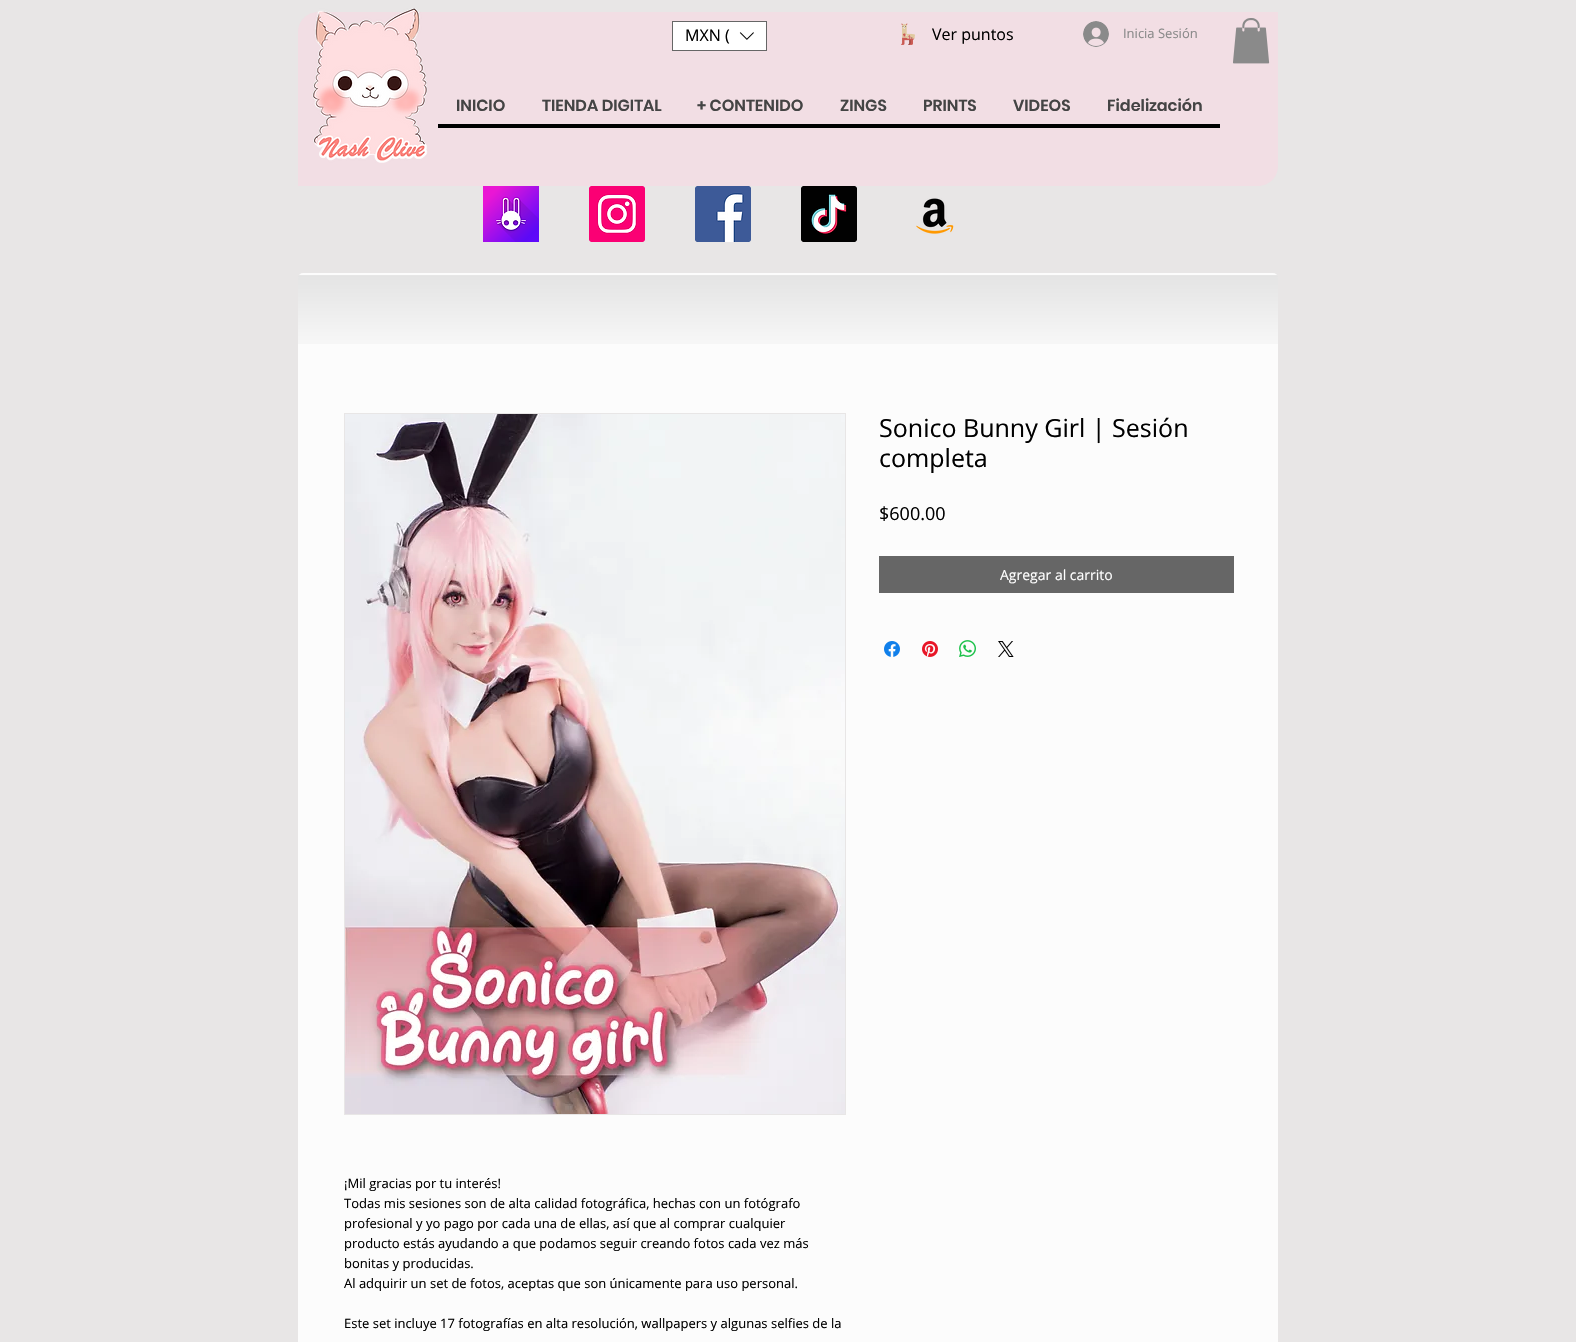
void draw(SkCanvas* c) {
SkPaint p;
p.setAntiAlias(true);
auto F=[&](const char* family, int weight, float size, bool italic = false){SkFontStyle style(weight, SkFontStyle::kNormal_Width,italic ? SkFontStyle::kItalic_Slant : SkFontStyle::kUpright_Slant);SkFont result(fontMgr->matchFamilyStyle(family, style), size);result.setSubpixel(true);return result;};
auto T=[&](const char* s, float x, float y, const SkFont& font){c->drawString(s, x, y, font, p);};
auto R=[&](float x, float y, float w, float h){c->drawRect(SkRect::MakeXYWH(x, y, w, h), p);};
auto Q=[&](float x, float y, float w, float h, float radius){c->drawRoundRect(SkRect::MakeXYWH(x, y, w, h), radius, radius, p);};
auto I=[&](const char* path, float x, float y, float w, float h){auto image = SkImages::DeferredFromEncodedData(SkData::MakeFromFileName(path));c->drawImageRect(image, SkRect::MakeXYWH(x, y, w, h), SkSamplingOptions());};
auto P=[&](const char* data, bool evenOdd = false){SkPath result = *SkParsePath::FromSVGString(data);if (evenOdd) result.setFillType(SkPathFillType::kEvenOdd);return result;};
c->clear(0xffe8e6e6);
p.setColor(0xfff2dee4);
c->drawPath(P("M318 12h960v154c0 11-9 20-20 20h-960v-154c0-11 9-20 20-20z"),p);
I("1.png",312,8,116,155);
p.setColor(0xffffffff);
c->drawRect(SkRect::MakeXYWH(672.5,21.5,94,29),p);
p.setStroke(true);
p.setStrokeWidth(1);
p.setColor(0xff666666);
c->drawRect(SkRect::MakeXYWH(672.5,21.5,94,29),p);
auto f1 = F("Open Sans",400,16);
p.setStroke(false);
p.setColor(0xff000000);
T("MXN (",685,41,f1);
I("2.png",739,32,15,8);
I("3.png",901,23,14,22);
T("Ver puntos",932,40,f1);
I("4.png",1083,21,26,26);
auto f2 = F("Open Sans",400,13);
p.setColor(0xff8a8a8a);
T("Inicia Sesión",1123,38,f2);
I("5.png",1233,18,37,46);
p.setColor(0xff000000);
R(438,124,782,4);
auto f3 = F("Poppins",600,16);
p.setColor(0xff444444);
T("INICIO",456,111,f3);
T("TIENDA DIGITAL",542,111,f3);
T("+ CONTENIDO",697,111,f3);
T("ZINGS",840,111,f3);
T("PRINTS",923,111,f3);
T("VIDEOS",1013,111,f3);
T("Fidelización",1107,111,f3);
I("6.png",483,186,56,56);
I("7.png",589,186,56,56);
I("8.png",695,186,56,56);
I("9.png",801,186,56,56);
I("10.png",916,198,38,36);
p.setColor(0xfffcfcfc);
Q(298,273,980,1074,5);
I("11.png",298,275,980,69);
auto f4 = F("Open Sans",400,25);
p.setColor(0xff000000);
T("Sonico Bunny Girl | Sesión",879,437,f4);
T("completa",879,467,f4);
auto f5 = F("Open Sans",400,18);
T("$600.00",879,520,f5);
p.setColor(0xff666666);
R(879,556,355,37);
auto f6 = F("Open Sans",400,14);
p.setColor(0xffffffff);
T("Agregar al carrito",1000,580,f6);
I("12.png",884,641,16,16);
I("13.png",922,641,16,16);
I("14.png",959,640,17,17);
I("15.png",998,641,16,16);
p.setStroke(true);
p.setColor(0xffe8e6e6);
c->drawRect(SkRect::MakeXYWH(344.5,413.5,501,701),p);
I("16.png",345,414,500,700);
p.setStroke(false);
p.setColor(0xff000000);
T("¡Mil gracias por tu interés!",344,1188,f2);
T("Todas mis sesiones son de alta calidad fotográfica, hechas con un fotógrafo",344,1208,f2);
T("profesional y yo pago por cada una de ellas, así que al comprar cualquier",344,1228,f2);
T("producto estás ayudando a que podamos seguir creando fotos cada vez más",344,1248,f2);
T("bonitas y producidas.",344,1268,f2);
T("Al adquirir un set de fotos, aceptas que son únicamente para uso personal.",344,1288,f2);
T("Este set incluye 17 fotografías en alta resolución, wallpapers y algunas selfies de la",344,1328,f2);
}
